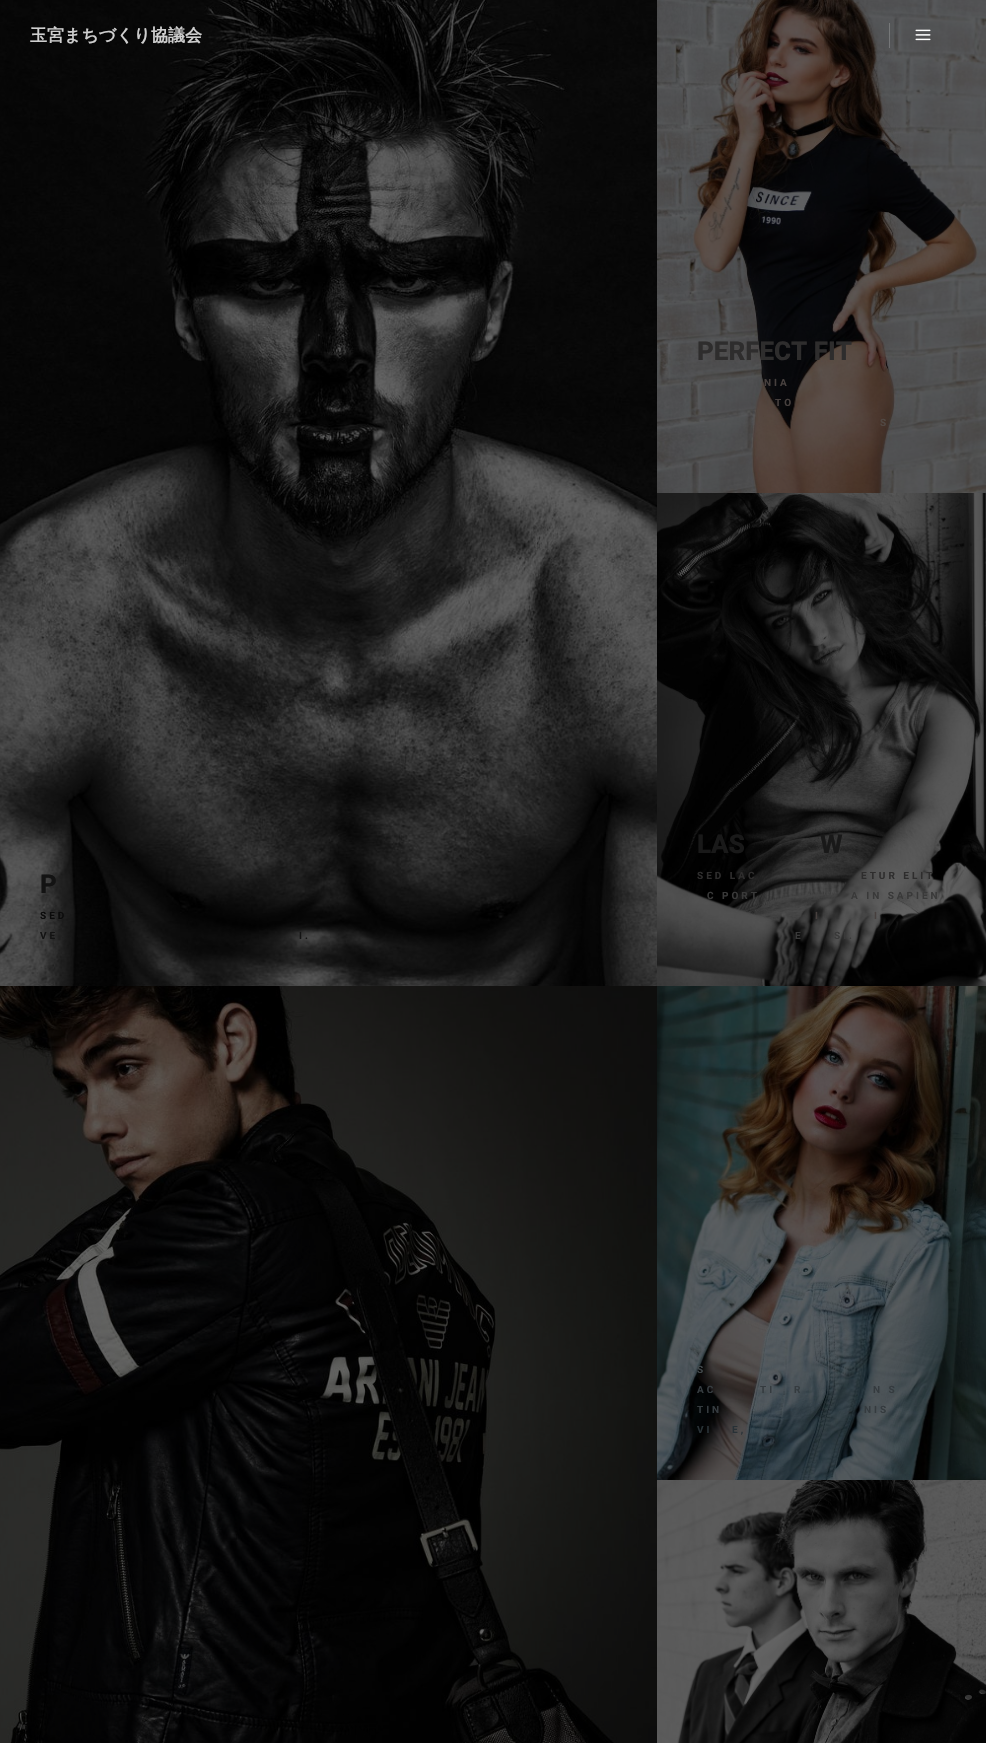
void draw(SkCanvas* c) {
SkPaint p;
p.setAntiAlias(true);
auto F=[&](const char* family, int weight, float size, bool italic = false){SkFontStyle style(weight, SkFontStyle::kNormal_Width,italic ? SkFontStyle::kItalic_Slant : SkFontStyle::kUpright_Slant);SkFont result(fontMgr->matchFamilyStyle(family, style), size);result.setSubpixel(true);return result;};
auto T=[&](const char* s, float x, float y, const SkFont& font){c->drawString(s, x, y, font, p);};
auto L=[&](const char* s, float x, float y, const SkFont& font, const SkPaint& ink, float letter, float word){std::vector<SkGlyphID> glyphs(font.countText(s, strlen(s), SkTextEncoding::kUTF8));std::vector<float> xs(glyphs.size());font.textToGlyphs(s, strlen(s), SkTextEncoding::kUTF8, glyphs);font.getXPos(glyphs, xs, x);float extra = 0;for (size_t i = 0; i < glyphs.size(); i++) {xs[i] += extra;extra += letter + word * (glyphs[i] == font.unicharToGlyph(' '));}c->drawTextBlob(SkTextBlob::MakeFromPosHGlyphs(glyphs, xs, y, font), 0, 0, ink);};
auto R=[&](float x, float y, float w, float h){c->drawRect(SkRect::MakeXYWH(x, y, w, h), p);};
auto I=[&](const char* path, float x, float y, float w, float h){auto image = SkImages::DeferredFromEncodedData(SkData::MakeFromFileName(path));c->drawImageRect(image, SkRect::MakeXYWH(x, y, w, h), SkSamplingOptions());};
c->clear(0xffffffff);
I("3.png",0,0,657,986);
auto f1 = F("WenQuanYi Zen Hei",700,17);
p.setColor(0xffcecece);
T("玉宮まちづくり協議会",30,41,f1);
I("2.png",657,0,329,493);
p.setColor(0x33ffffff);
R(889,23,1,25);
I("1.png",915,29,16,12);
auto f2 = F("Roboto",800,26);
p.setColor(0xff2e2d2d);
T("PERFECT FIT",697,360,f2);
auto f3 = F("Roboto",700,10);
p.setColor(0xff47403e);
L("NIA",764,386,f3,p,3,0);
L("TO",775,406,f3,p,3,0);
p.setColor(0xff504742);
L("S",880,426,f3,p,3,0);
p.setColor(0xff131313);
T("P",40,893,f2);
p.setColor(0xff0b0b0b);
L("SED",40,919,f3,p,3,0);
p.setColor(0xff131313);
L("VE",40,939,f3,p,3,0);
L("I.",299,939,f3,p,3,0);
I("4.png",657,493,329,493);
p.setColor(0xff191919);
T("LAS",697,853,f2);
T("W",820,853,f2);
p.setColor(0xff2e2d2d);
L("SED LAC",697,879,f3,p,3,0);
L("ETUR ELIT",861,879,f3,p,3,0);
p.setColor(0xff393939);
L("C PORT",707,899,f3,p,3,0);
L("A IN SAPIEN",851,899,f3,p,3,0);
p.setColor(0xff47403e);
L("I",815,919,f3,p,3,0);
L("I",874,919,f3,p,3,0);
p.setColor(0xff393939);
L("E",795,939,f3,p,3,0);
L("SI.",834,939,f3,p,3,0);
I("5.png",0,986,657,757);
I("6.png",657,986,329,494);
p.setColor(0xff3f4649);
L("S",697,1373,f3,p,3,0);
p.setColor(0xff353b3f);
L("AC",697,1393,f3,p,3,0);
L("TI",760,1393,f3,p,3,0);
L("R",794,1393,f3,p,3,0);
L("N S",873,1393,f3,p,3,0);
L("TIN",697,1413,f3,p,3,0);
L("NIS",864,1413,f3,p,3,0);
p.setColor(0xff283136);
L("VI",697,1433,f3,p,3,0);
L("E,",732,1433,f3,p,3,0);
I("7.png",657,1480,329,263);
}
